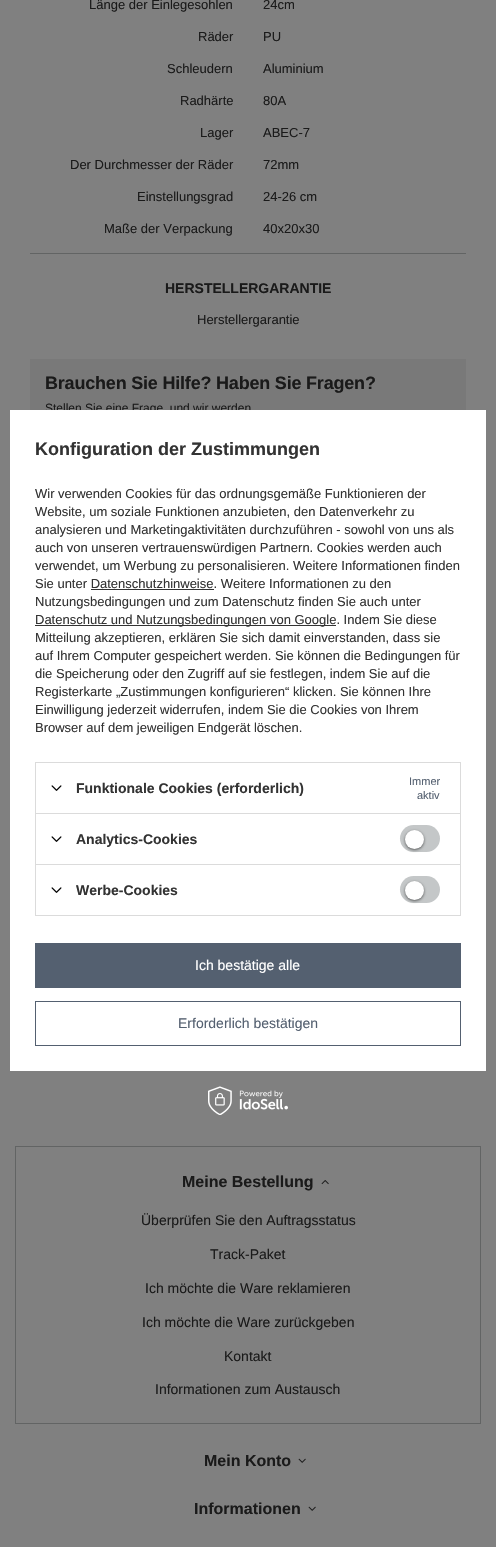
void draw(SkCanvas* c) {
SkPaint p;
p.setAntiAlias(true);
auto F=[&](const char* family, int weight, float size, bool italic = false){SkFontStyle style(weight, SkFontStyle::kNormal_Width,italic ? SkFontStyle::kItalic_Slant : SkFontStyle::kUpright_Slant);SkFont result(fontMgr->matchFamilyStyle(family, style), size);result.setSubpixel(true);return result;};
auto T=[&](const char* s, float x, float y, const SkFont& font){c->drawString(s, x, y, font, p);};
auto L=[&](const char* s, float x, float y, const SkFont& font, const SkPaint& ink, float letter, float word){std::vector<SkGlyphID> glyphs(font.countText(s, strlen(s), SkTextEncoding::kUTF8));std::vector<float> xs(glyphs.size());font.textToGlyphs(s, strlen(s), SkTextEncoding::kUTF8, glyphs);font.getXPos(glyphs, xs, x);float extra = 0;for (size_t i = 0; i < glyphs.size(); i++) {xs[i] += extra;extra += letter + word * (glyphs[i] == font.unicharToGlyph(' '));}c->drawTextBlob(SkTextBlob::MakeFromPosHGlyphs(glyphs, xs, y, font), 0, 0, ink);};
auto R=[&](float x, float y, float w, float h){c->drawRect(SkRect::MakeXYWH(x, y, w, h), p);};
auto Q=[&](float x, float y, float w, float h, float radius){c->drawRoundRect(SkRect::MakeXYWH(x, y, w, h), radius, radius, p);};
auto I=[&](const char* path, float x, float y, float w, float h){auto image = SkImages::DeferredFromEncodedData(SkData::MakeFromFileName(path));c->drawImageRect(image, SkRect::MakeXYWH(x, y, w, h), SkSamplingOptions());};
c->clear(0xff808080);
auto f1 = F("Liberation Sans",400,13);
p.setColor(0xff1a1a1a);
T("Länge der Einlegesohlen",89,9,f1);
T("24cm",263,9,f1);
T("Räder",198,41,f1);
T("PU",263,41,f1);
T("Schleudern",167,73,f1);
T("Aluminium",263,73,f1);
T("Radhärte",180,105,f1);
T("80A",263,105,f1);
T("Lager",200,137,f1);
T("ABEC-7",263,137,f1);
T("Der Durchmesser der Räder",70,169,f1);
T("72mm",263,169,f1);
T("Einstellungsgrad",137,201,f1);
T("24-26 cm",263,201,f1);
T("Maße der Verpackung",104,233,f1);
T("40x20x30",263,233,f1);
p.setColor(0xff626464);
R(30,253,436,1);
auto f2 = F("Liberation Sans",700,14);
p.setColor(0xff1a1a1a);
T("HERSTELLERGARANTIE",165,293,f2);
T("Herstellergarantie",197,324,f1);
p.setColor(0xff797979);
R(30,359,436,51);
auto f3 = F("Liberation Sans",700,18);
p.setColor(0xff1a1a1a);
L("Brauchen Sie Hilfe? Haben Sie Fragen?",45,389,f3,p,-.2,0);
auto f4 = F("Liberation Sans",400,12);
T("Stellen Sie eine Frage, und wir werden",45,412,f4);
p.setColor(0xffffffff);
R(10,410,476,661);
p.setColor(0xff333333);
T("Konfiguration der Zustimmungen",35,455,f3);
T("Wir verwenden Cookies für das ordnungsgemäße Funktionieren der",35,498,f1);
T("Website, um soziale Funktionen anzubieten, den Datenverkehr zu",35,516,f1);
T("analysieren und Marketingaktivitäten durchzuführen - sowohl von uns als",35,534,f1);
T("auch von unseren vertrauenswürdigen Partnern. Cookies werden auch",35,552,f1);
T("verwendet, um Werbung zu personalisieren. Weitere Informationen finden",35,570,f1);
T("Sie unter Datenschutzhinweise. Weitere Informationen zu den",35,588,f1);
R(91,589,123,1);
T("Nutzungsbedingungen und zum Datenschutz finden Sie auch unter",35,606,f1);
R(35,625,301,1);
T("Datenschutz und Nutzungsbedingungen von Google. Indem Sie diese",35,624,f1);
T("Mitteilung akzeptieren, erklären Sie sich damit einverstanden, dass sie",35,642,f1);
T("auf Ihrem Computer gespeichert werden. Sie können die Bedingungen für",35,660,f1);
T("die Speicherung oder den Zugriff auf sie festlegen, indem Sie auf die",35,678,f1);
T("Registerkarte „Zustimmungen konfigurieren“ klicken. Sie können Ihre",35,696,f1);
T("Einwilligung jederzeit widerrufen, indem Sie die Cookies von Ihrem",35,714,f1);
T("Browser auf dem jeweiligen Endgerät löschen.",35,732,f1);
p.setColor(0xffdbdbdb);
R(35,762,426,1);
R(460,762,1,51);
R(35,762,1,51);
I("1.png",51,785,11,6);
p.setColor(0xff333333);
T("Funktionale Cookies (erforderlich)",76,793,f2);
auto f5 = F("Liberation Sans",400,11);
p.setColor(0xff546070);
T("Immer",409,785,f5);
T("aktiv",417,799,f5);
p.setColor(0xffdbdbdb);
R(35,813,426,1);
R(460,813,1,51);
R(35,813,1,51);
I("1.png",51,836,11,6);
p.setColor(0xff333333);
T("Analytics-Cookies",76,844,f2);
p.setColor(0xffc4c7c8);
Q(400,825,40,27,13.5);
p.setColor(0x8f000000);
p.setMaskFilter(SkMaskFilter::MakeBlur(kNormal_SkBlurStyle, 1.5));
c->drawRoundRect(SkRect::MakeXYWH(405,831,19,19),9.5,9.5,p);
p.setMaskFilter(nullptr);
p.setColor(0xffffffff);
c->drawCircle(414.5,839.5,9.5,p);
p.setStroke(true);
p.setStrokeWidth(1);
p.setColor(0xffdbdbdb);
c->drawRect(SkRect::MakeXYWH(35.5,864.5,425,51),p);
I("1.png",51,887,11,6);
p.setStroke(false);
p.setColor(0xff333333);
T("Werbe-Cookies",76,895,f2);
p.setColor(0xffc4c7c8);
Q(400,876,40,27,13.5);
p.setColor(0x8f000000);
p.setMaskFilter(SkMaskFilter::MakeBlur(kNormal_SkBlurStyle, 1.5));
c->drawRoundRect(SkRect::MakeXYWH(405,882,19,19),9.5,9.5,p);
p.setMaskFilter(nullptr);
p.setColor(0xffffffff);
c->drawCircle(414.5,890.5,9.5,p);
p.setColor(0xff546070);
R(35,943,426,45);
auto f6 = F("Liberation Sans",400,14);
p.setColor(0xffffffff);
T("Ich bestätige alle",195,970,f6);
p.setStroke(true);
p.setColor(0xff546070);
c->drawRect(SkRect::MakeXYWH(35.5,1001.5,425,44),p);
p.setStroke(false);
T("Erforderlich bestätigen",178,1028,f6);
I("2.png",208,1086,80,29);
p.setStroke(true);
p.setColor(0xff626464);
c->drawRect(SkRect::MakeXYWH(15.5,1146.5,465,277),p);
auto f7 = F("Liberation Sans",700,16);
p.setStroke(false);
p.setColor(0xff1a1a1a);
T("Meine Bestellung",182,1187,f7);
I("3.png",321,1180,8,5);
T("Überprüfen Sie den Auftragsstatus",141,1225,f6);
T("Track-Paket",210,1259,f6);
T("Ich möchte die Ware reklamieren",145,1293,f6);
T("Ich möchte die Ware zurückgeben",142,1327,f6);
T("Kontakt",224,1361,f6);
T("Informationen zum Austausch",155,1394,f6);
T("Mein Konto",204,1466,f7);
I("4.png",298,1458,8,5);
T("Informationen",194,1514,f7);
I("4.png",308,1506,8,5);
}
